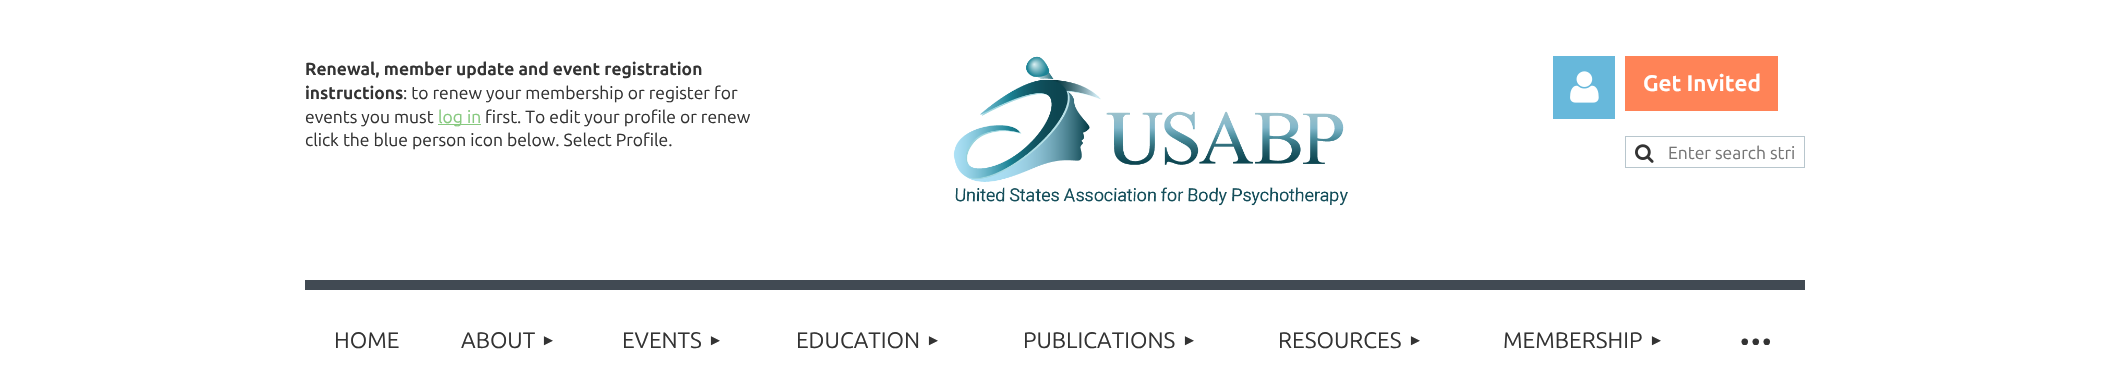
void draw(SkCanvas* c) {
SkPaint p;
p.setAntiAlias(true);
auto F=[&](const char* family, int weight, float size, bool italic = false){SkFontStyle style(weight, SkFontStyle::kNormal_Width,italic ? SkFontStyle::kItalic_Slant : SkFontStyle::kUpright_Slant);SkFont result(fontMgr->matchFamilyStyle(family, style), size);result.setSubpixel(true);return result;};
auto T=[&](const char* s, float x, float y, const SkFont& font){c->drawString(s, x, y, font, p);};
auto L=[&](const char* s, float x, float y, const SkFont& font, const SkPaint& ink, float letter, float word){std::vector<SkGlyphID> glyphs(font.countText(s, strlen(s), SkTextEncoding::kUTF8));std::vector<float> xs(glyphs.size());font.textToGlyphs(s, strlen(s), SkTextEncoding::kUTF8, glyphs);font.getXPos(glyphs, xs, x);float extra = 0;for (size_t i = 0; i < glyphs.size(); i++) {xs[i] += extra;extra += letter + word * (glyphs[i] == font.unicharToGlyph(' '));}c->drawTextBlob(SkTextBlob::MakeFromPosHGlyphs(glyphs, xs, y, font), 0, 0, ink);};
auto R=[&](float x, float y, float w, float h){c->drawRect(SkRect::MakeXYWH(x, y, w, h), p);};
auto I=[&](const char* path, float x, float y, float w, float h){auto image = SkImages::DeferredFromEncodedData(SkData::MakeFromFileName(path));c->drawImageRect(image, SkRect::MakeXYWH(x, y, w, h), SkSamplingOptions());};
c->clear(0xffffffff);
auto f1 = F("Ubuntu",700,17.5);
p.setColor(0xff333333);
T("Renewal, member update and event registration",305,75,f1);
T("instructions",305,99,f1);
auto f2 = F("Ubuntu",400,17.5);
T(": to renew your membership or register for",403,99,f2);
T("events you must",305,123,f2);
p.setColor(0xff87c97f);
R(438,124,43,1);
T("log in",438,123,f2);
p.setColor(0xff333333);
T("first. To edit your profile or renew",485,123,f2);
T("click the blue person icon below. Select Profile.",305,146,f2);
I("1.png",953,56,395,150);
p.setColor(0xff67b8db);
R(1553,56,62,63);
I("2.png",1570,71,29,32);
p.setColor(0xffff8357);
R(1625,56,153,55);
auto f3 = F("Ubuntu",700,22.5);
p.setColor(0xffffffff);
T("Get Invited",1643,91,f3);
p.setStroke(true);
p.setStrokeWidth(1);
p.setColor(0xffb8c6cd);
c->drawRect(SkRect::MakeXYWH(1625.5,136.5,179,31),p);
I("3.png",1635,144,19,19);
p.setStroke(false);
p.setColor(0xff757575);
T("Enter search stri",1668,159,f2);
p.setColor(0xff414a53);
R(305,280,1500,10);
auto f4 = F("Ubuntu",400,22.5);
p.setColor(0xff333333);
T("HOME",334,348,f4);
T("ABOUT",461,348,f4);
auto f5 = F("Liberation Sans",400,15);
T("►",541,345,f5);
T("EVENTS",622,348,f4);
T("►",708,345,f5);
T("EDUCATION",796,348,f4);
T("►",926,345,f5);
T("PUBLICATIONS",1023,348,f4);
T("►",1182,345,f5);
T("RESOURCES",1278,348,f4);
T("►",1408,345,f5);
T("MEMBERSHIP",1503,348,f4);
T("►",1649,345,f5);
auto f6 = F("Ubuntu",400,55);
L("···",1738,358,f6,p,-2.5,0);
}
